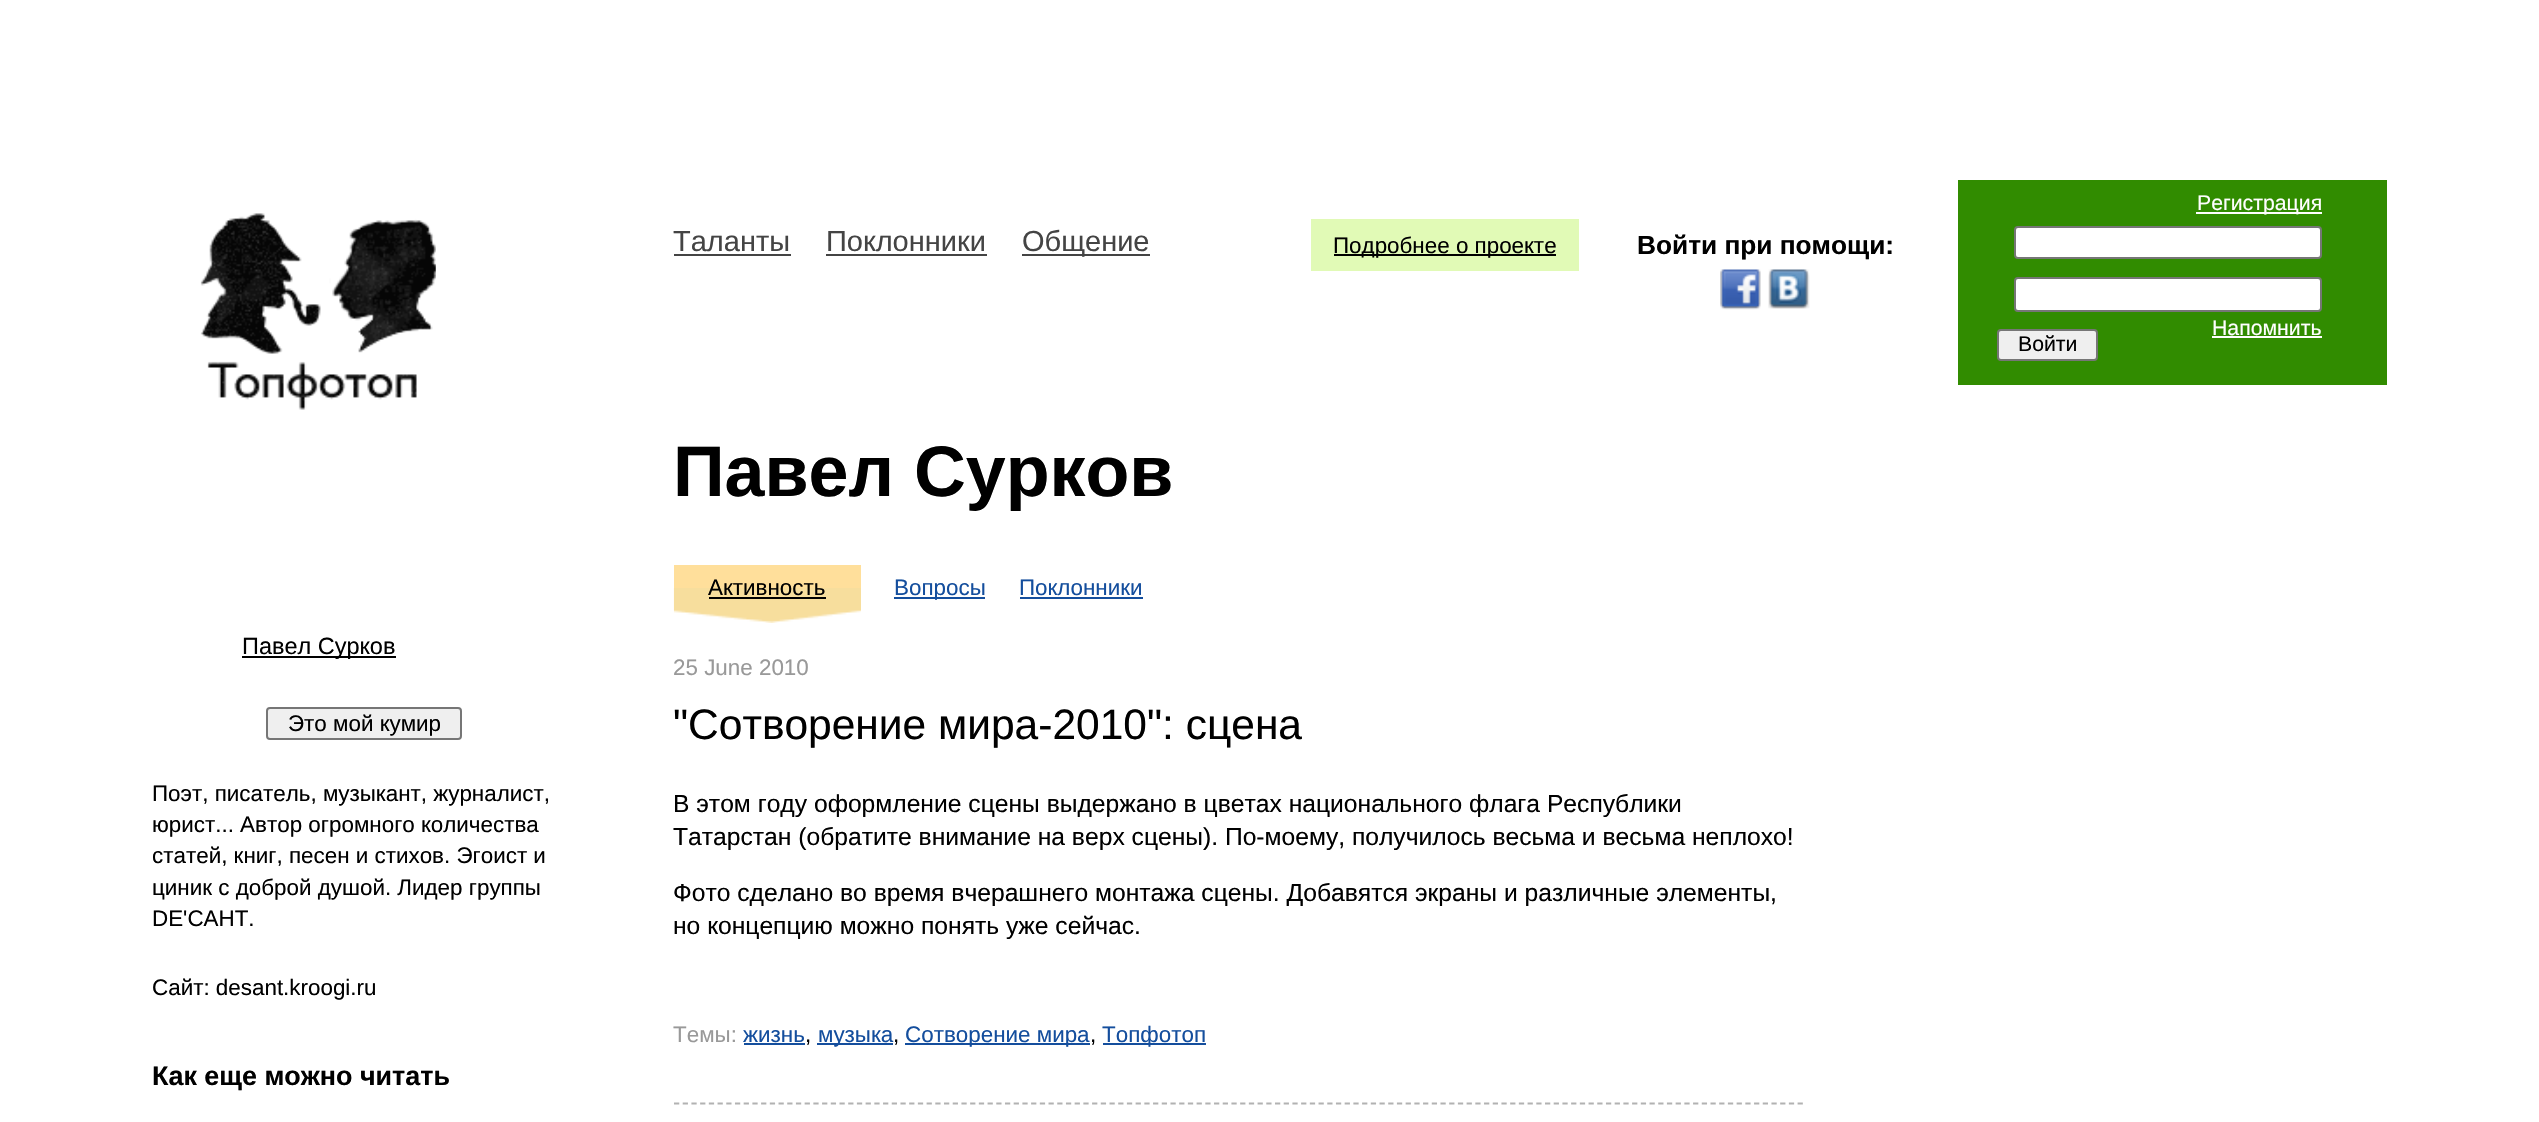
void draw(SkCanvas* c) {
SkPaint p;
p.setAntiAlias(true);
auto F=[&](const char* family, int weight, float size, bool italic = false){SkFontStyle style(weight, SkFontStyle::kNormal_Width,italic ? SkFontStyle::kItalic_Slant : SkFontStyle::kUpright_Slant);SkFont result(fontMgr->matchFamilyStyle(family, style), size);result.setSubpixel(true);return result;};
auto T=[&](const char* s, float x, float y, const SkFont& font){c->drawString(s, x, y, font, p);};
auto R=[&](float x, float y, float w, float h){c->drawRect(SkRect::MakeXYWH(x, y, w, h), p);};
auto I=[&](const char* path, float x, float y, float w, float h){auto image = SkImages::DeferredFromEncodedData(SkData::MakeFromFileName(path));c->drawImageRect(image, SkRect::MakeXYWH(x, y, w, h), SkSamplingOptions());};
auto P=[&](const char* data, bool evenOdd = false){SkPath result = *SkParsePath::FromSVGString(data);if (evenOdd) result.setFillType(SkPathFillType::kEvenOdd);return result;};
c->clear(0xffffffff);
I("1.png",200,213,236,197);
auto f1 = F("Liberation Sans",400,29);
p.setColor(0xff444444);
T("Таланты",673,251,f1);
R(674,254,117,2);
T("Поклонники",826,251,f1);
R(826,254,161,2);
R(1022,254,128,2);
T("Общение",1022,251,f1);
auto f2 = F("Liberation Sans",700,71.75);
p.setColor(0xff000000);
T("Павел Сурков",673,496,f2);
p.setColor(0xffe1fab6);
R(1311,219,268,52);
p.setColor(0xff000000);
R(1334,254,222,2);
auto f3 = F("Liberation Sans",400,22.4);
T("Подробнее о проекте",1333,253,f3);
auto f4 = F("Liberation Sans",700,26.25);
T("Войти при помощи:",1637,254,f4);
I("2.png",1720,269,41,41);
I("3.png",1768,269,42,40);
p.setColor(0xff318c00);
R(1958,180,429,205);
p.setColor(0xffffffff);
R(2196,212,126,2);
auto f5 = F("Liberation Sans",400,21.25);
T("Регистрация",2197,210,f5);
c->drawRoundRect(SkRect::MakeXYWH(2015,227,306,31),3,3,p);
p.setStroke(true);
p.setStrokeWidth(2);
p.setColor(0xff767676);
c->drawRoundRect(SkRect::MakeXYWH(2015,227,306,31),3,3,p);
p.setStroke(false);
p.setColor(0xffffffff);
c->drawRoundRect(SkRect::MakeXYWH(2015,278,306,33),3,3,p);
p.setStroke(true);
p.setColor(0xff767676);
c->drawRoundRect(SkRect::MakeXYWH(2015,278,306,33),3,3,p);
p.setStroke(false);
p.setColor(0xffffffff);
T("Напомнить",2212,335,f5);
R(2212,336,110,2);
p.setColor(0xffefefef);
c->drawRoundRect(SkRect::MakeXYWH(1998,330,99,30),3,3,p);
p.setStroke(true);
p.setColor(0xff767676);
c->drawRoundRect(SkRect::MakeXYWH(1998,330,99,30),3,3,p);
p.setStroke(false);
p.setColor(0xff000000);
T("Войти",2018,351,f5);
R(242,656,154,2);
auto f6 = F("Liberation Sans",400,23.5);
T("Павел Сурков",242,654,f6);
p.setColor(0xffefefef);
c->drawRoundRect(SkRect::MakeXYWH(267,708,194,31),3,3,p);
p.setStroke(true);
p.setColor(0xff767676);
c->drawRoundRect(SkRect::MakeXYWH(267,708,194,31),3,3,p);
p.setStroke(false);
p.setColor(0xff000000);
T("Это мой кумир",288,731,f3);
T("Поэт, писатель, музыкант, журналист,",152,801,f3);
T("юрист... Автор огромного количества",152,832,f3);
T("статей, книг, песен и стихов. Эгоист и",152,863,f3);
T("циник с доброй душой. Лидер группы",152,895,f3);
T("DE'CAHT.",152,926,f3);
T("Сайт: desant.kroogi.ru",152,995,f3);
auto f7 = F("Liberation Sans",700,26.9);
T("Как еще можно читать",152,1085,f7);
p.setColor(0xffffdf9b);
R(674,565,187,23);
I("4.png",673,588,188,35);
p.setColor(0xff000000);
T("Активность",708,595,f3);
R(709,597,117,2);
p.setColor(0xff144e9d);
R(894,597,91,2);
T("Вопросы",894,595,f3);
T("Поклонники",1019,595,f3);
R(1020,597,123,2);
p.setColor(0xff999999);
T("25 June 2010",673,675,f3);
auto f8 = F("Liberation Sans",400,42.5);
p.setColor(0xff000000);
T("\"Сотворение мира-2010\": сцена",673,739,f8);
auto f9 = F("Liberation Sans",400,24.65);
T("В этом году оформление сцены выдержано в цветах национального флага Республики",673,812,f9);
T("Татарстан (обратите внимание на верх сцены). По-моему, получилось весьма и весьма неплохо!",673,845,f9);
T("Фото сделано во время вчерашнего монтажа сцены. Добавятся экраны и различные элементы,",673,901,f9);
T("но концепцию можно понять уже сейчас.",673,934,f9);
p.setColor(0xff999999);
T("Темы:",673,1042,f3);
p.setColor(0xff144e9d);
T("жизнь",743,1042,f3);
p.setColor(0xff000000);
T(",",805,1042,f3);
p.setColor(0xff144e9d);
R(744,1043,61,2);
R(817,1043,76,2);
T("музыка",818,1042,f3);
p.setColor(0xff000000);
T(",",893,1042,f3);
p.setColor(0xff144e9d);
R(905,1043,185,2);
T("Сотворение мира",905,1042,f3);
p.setColor(0xff000000);
T(",",1090,1042,f3);
p.setColor(0xff144e9d);
R(1103,1043,103,2);
T("Топфотоп",1102,1042,f3);
p.setStroke(true);
p.setStrokeWidth(1.8);
p.setColor(0xffb2b2b2);
p.setPathEffect(SkDashPathEffect::Make({{5.25f,3.46f}}, 0));
c->drawPath(P("M674 1103.5h1130"),p);
p.setPathEffect(nullptr);
}
